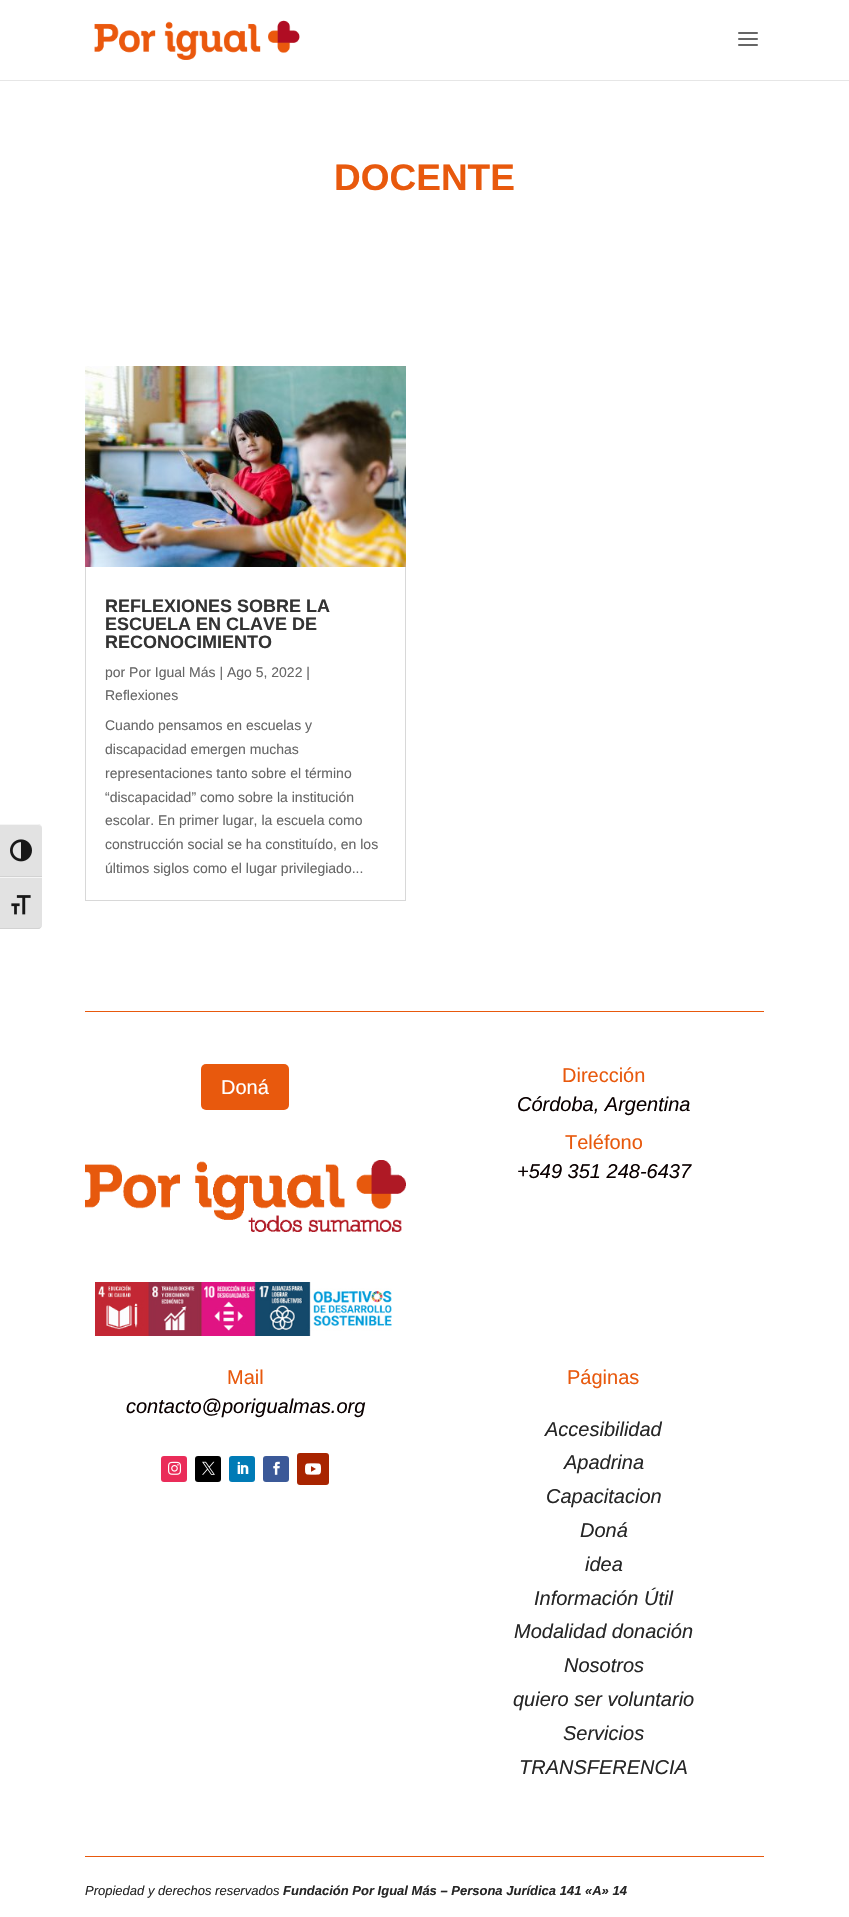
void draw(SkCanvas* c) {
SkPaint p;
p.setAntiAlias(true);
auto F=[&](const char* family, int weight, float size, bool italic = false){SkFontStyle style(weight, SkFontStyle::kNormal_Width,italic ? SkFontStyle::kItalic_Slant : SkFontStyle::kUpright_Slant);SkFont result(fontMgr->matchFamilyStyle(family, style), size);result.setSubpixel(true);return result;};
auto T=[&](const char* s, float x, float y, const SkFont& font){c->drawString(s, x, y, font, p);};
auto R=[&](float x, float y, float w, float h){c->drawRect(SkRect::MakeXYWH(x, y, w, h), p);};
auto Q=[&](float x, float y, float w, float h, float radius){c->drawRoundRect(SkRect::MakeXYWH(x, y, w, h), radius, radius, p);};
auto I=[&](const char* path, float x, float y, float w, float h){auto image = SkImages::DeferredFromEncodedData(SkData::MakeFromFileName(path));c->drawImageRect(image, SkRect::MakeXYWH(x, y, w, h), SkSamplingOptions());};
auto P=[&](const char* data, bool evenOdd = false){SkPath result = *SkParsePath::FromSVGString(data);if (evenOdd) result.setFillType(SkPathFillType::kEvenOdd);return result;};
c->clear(0xffffffff);
p.setColor(0xffe2e2e2);
c->drawPath(P("M0 824h38c2 0 4 2 4 4v49h-42z"),p);
p.setColor(0xfff5f5f5);
c->drawPath(P("M0 824v1h38c2 0 4 1 4 3c0-2-2-4-4-4z"),p);
p.setColor(0xffd2d2d2);
R(0,876,42,1);
I("1.png",10,839,22,23);
p.setColor(0xffe2e2e2);
c->drawPath(P("M0 877h42v48c0 2-2 4-4 4h-38z"),p);
p.setColor(0xfff5f5f5);
R(0,877,42,1);
p.setColor(0xffd2d2d2);
c->drawPath(P("M0 928v1h38c2 0 4-2 4-4c0 2-2 3-4 3z"),p);
I("2.png",11,895,20,20);
p.setColor(0xffe6e6e6);
R(0,80,849,1);
I("3.png",94,20,206,40);
I("4.png",738,32,20,14);
auto f1 = F("Liberation Sans",700,37);
p.setColor(0xffe8590d);
T("DOCENTE",334,190,f1);
p.setStroke(true);
p.setStrokeWidth(1);
p.setColor(0xffd8d8d8);
c->drawRect(SkRect::MakeXYWH(85.5,366.5,320,534),p);
I("5.png",85,366,321,201);
auto f2 = F("Liberation Sans",700,18);
p.setStroke(false);
p.setColor(0xff333333);
T("REFLEXIONES SOBRE LA",105,612,f2);
T("ESCUELA EN CLAVE DE",105,630,f2);
T("RECONOCIMIENTO",105,648,f2);
auto f3 = F("Liberation Sans",400,14);
p.setColor(0xff666666);
T("por Por Igual Más | Ago 5, 2022 |",105,677,f3);
T("Reflexiones",105,700,f3);
T("Cuando pensamos en escuelas y",105,730,f3);
T("discapacidad emergen muchas",105,754,f3);
T("representaciones tanto sobre el término",105,778,f3);
T("“discapacidad” como sobre la institución",105,802,f3);
T("escolar. En primer lugar, la escuela como",105,825,f3);
T("construcción social se ha constituído, en los",105,849,f3);
T("últimos siglos como el lugar privilegiado...",105,873,f3);
p.setColor(0xffe8590d);
R(85,1011,679,1);
Q(201,1064,88,46,5);
auto f4 = F("Liberation Sans",400,20);
p.setColor(0xffffffff);
T("Doná",221,1094,f4);
I("6.png",85,1160,321,72);
I("7.png",95,1282,297,54);
p.setColor(0xffe8590d);
T("Dirección",562,1082,f4);
auto f5 = F("Liberation Sans",400,20,true);
p.setColor(0xff0a0000);
T("Córdoba, Argentina",517,1111,f5);
p.setColor(0xffe8590d);
T("Teléfono",565,1149,f4);
p.setColor(0xff0a0000);
T("+549 351 248-6437",517,1178,f5);
p.setColor(0xffe8590d);
T("Mail",227,1384,f4);
p.setColor(0xff0a0000);
T("contacto@porigualmas.org",126,1413,f5);
p.setColor(0xffea2c59);
Q(161,1456,26,26,3);
I("8.png",168,1461,13,14);
p.setColor(0xff000000);
Q(195,1456,26,26,3);
I("9.png",202,1461,13,14);
p.setColor(0xff007bb6);
Q(229,1456,26,26,3);
I("10.png",237,1461,12,13);
p.setColor(0xff3b5998);
Q(263,1456,26,26,3);
I("11.png",273,1461,7,14);
p.setColor(0xffa82400);
Q(297,1453,32,32,3);
I("12.png",305,1463,16,12);
p.setColor(0xffe8590d);
T("Páginas",567,1384,f4);
p.setColor(0xff262626);
T("Accesibilidad",545,1436,f5);
T("Apadrina",564,1469,f5);
T("Capacitacion",546,1503,f5);
T("Doná",580,1537,f5);
T("idea",585,1571,f5);
T("Información Útil",534,1605,f5);
T("Modalidad donación",514,1638,f5);
T("Nosotros",564,1672,f5);
T("quiero ser voluntario",513,1706,f5);
T("Servicios",563,1740,f5);
T("TRANSFERENCIA",519,1774,f5);
p.setColor(0xffe8590d);
R(85,1856,679,1);
auto f6 = F("Liberation Sans",400,13,true);
p.setColor(0xff262626);
T("Propiedad y derechos reservados",85,1895,f6);
auto f7 = F("Liberation Sans",700,13,true);
T("Fundación Por Igual Más – Persona Jurídica 141 «A» 14",283,1895,f7);
}
